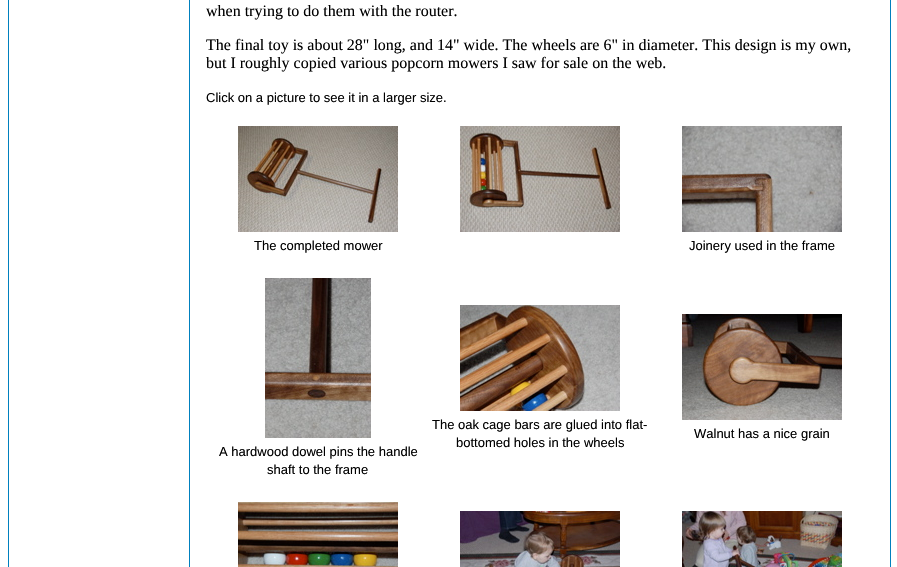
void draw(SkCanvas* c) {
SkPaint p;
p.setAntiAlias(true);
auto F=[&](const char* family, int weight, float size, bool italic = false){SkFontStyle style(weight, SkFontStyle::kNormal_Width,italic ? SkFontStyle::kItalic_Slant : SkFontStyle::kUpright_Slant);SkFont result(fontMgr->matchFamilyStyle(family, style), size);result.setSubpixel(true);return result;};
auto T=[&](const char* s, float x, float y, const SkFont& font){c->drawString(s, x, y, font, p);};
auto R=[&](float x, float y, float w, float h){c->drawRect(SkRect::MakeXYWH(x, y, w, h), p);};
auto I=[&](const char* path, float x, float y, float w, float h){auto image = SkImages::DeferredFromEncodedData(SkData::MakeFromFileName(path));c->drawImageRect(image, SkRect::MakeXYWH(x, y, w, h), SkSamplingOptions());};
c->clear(0xffffffff);
p.setStroke(true);
p.setStrokeWidth(1);
p.setColor(0xff0080be);
c->drawRect(SkRect::MakeXYWH(8.5,-.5,882,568),p);
p.setStroke(false);
R(189,0,1,567);
auto f1 = F("Liberation Serif",400,16);
p.setColor(0xff000000);
T("when trying to do them with the router.",206,16,f1);
T("The final toy is about 28\" long, and 14\" wide. The wheels are 6\" in diameter. This design is my own,",206,50,f1);
T("but I roughly copied various popcorn mowers I saw for sale on the web.",206,68,f1);
auto f2 = F("Liberation Sans",400,13);
T("Click on a picture to see it in a larger size.",206,102,f2);
I("1.png",460,126,160,106);
I("2.png",238,126,160,106);
T("The completed mower",254,250,f2);
I("3.png",682,126,160,106);
T("Joinery used in the frame",689,250,f2);
I("4.png",460,305,160,106);
T("The oak cage bars are glued into flat-",432,429,f2);
T("bottomed holes in the wheels",456,447,f2);
I("5.png",682,314,160,106);
T("Walnut has a nice grain",694,438,f2);
I("6.png",265,278,106,160);
T("A hardwood dowel pins the handle",219,456,f2);
T("shaft to the frame",267,474,f2);
I("7.png",238,502,160,65);
I("8.png",460,511,160,56);
I("9.png",682,511,160,56);
}
